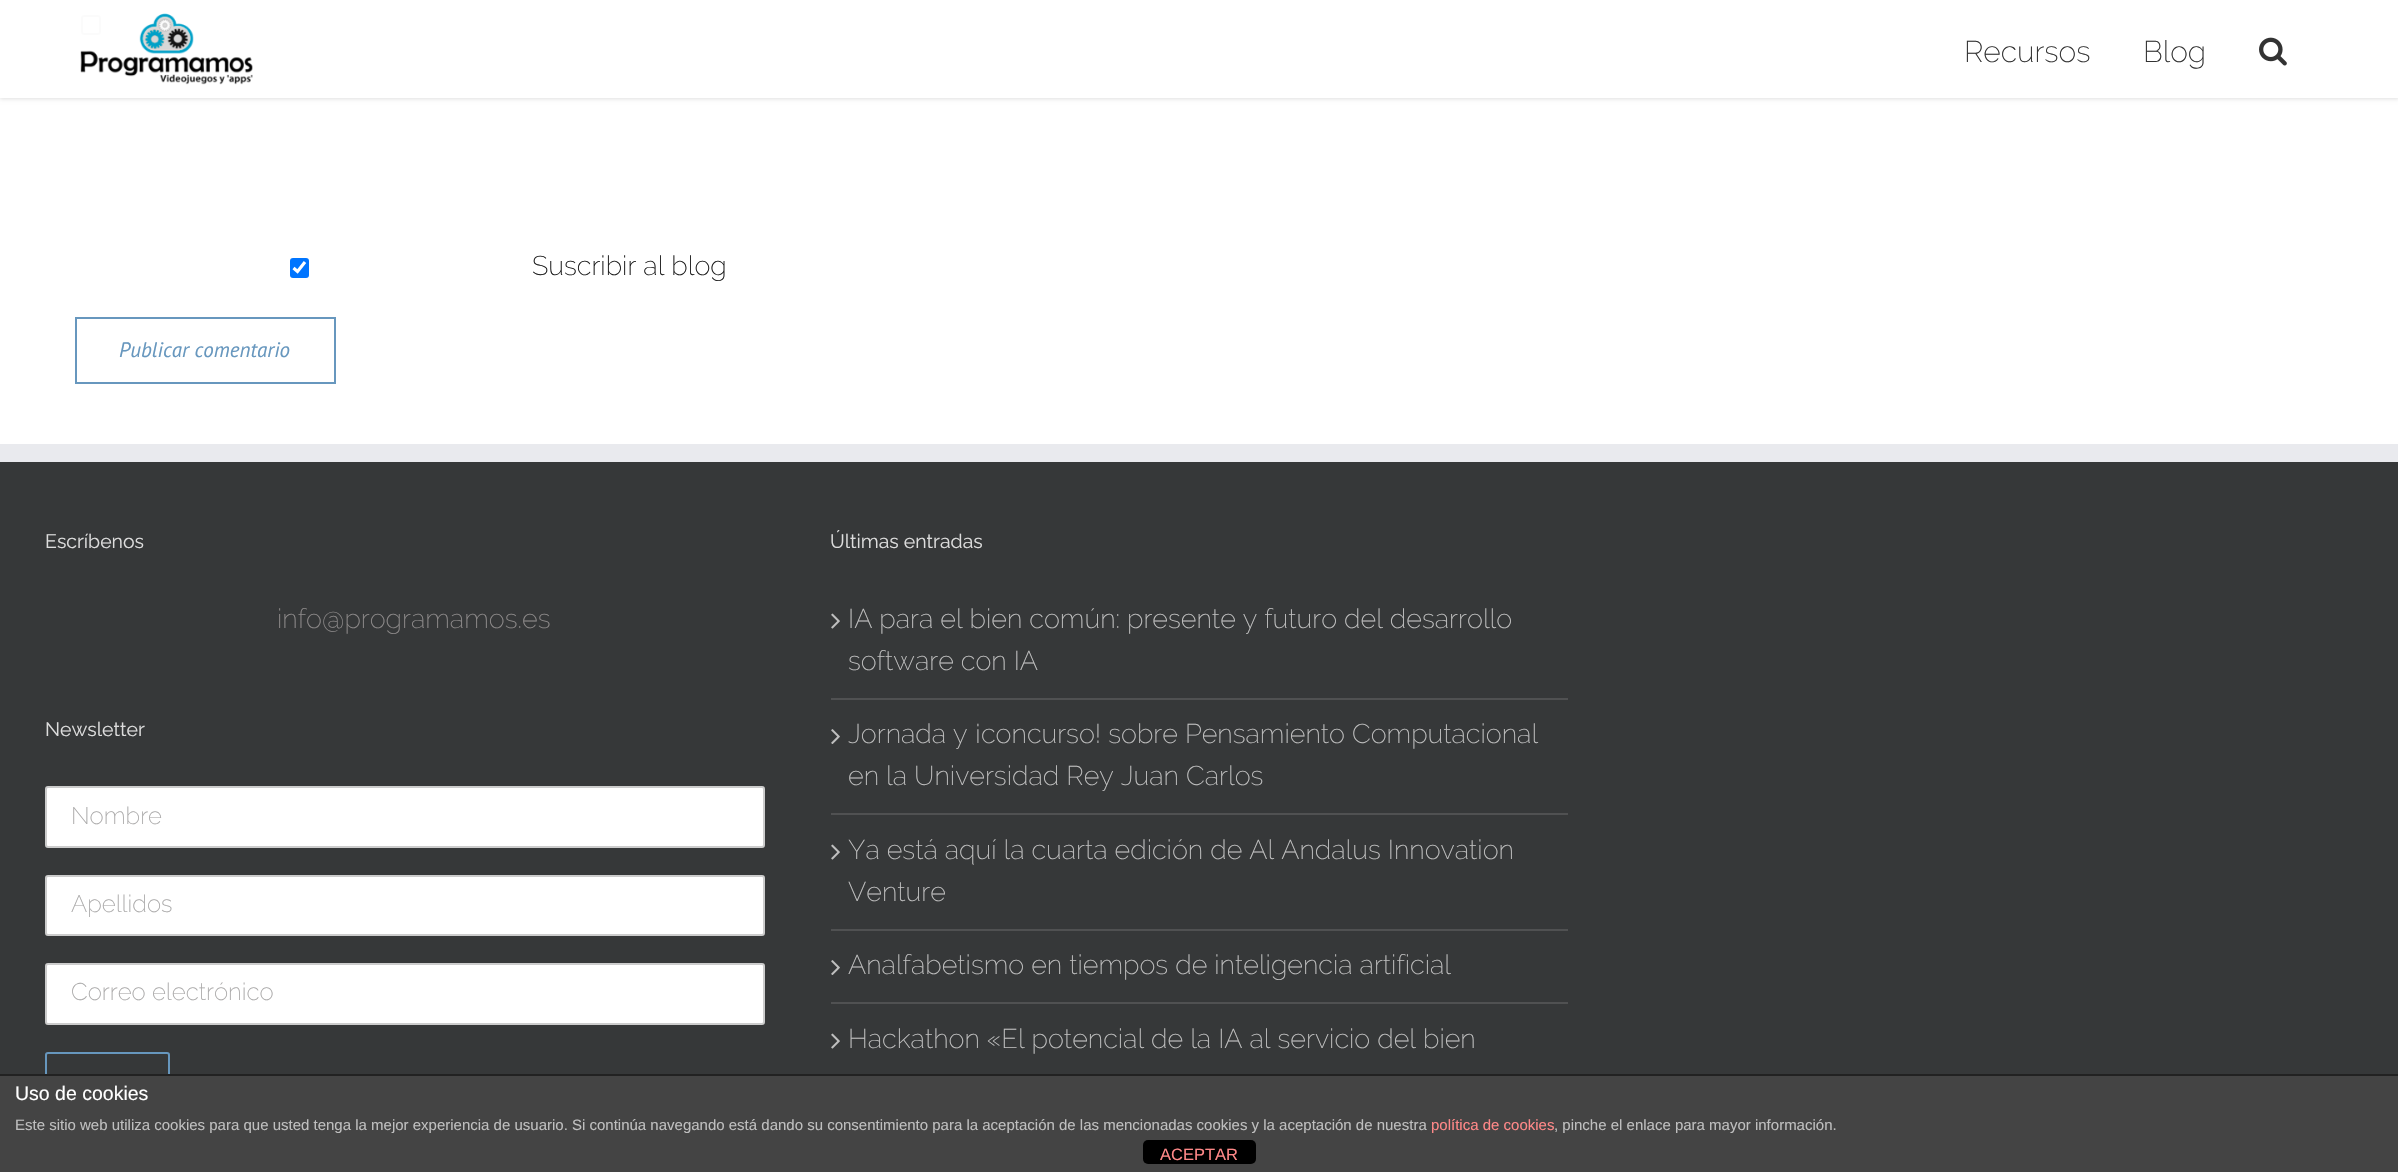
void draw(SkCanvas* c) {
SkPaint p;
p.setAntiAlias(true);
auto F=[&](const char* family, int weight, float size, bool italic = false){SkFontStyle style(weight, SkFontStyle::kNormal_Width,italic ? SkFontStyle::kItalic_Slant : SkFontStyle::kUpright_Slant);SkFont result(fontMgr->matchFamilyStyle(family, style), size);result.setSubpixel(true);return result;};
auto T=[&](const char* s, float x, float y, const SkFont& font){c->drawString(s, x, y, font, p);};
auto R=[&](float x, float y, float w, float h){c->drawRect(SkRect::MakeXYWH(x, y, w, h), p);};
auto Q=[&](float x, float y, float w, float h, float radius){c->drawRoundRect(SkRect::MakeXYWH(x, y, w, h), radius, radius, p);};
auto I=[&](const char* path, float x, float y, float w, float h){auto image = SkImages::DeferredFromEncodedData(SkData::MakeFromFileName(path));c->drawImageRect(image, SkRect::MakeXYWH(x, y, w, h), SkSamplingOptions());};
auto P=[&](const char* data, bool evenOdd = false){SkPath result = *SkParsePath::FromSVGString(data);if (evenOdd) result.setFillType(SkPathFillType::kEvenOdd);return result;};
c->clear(0xffffffff);
p.setStroke(true);
p.setStrokeWidth(2);
p.setColor(0xff767676);
c->drawRoundRect(SkRect::MakeXYWH(82,16,18,18),2,2,p);
c->save();
c->clipPath(P("M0 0h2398v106h-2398zm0 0h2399v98h-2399z",true),true);
p.setStroke(false);
p.setColor(0x1f000000);
p.setMaskFilter(SkMaskFilter::MakeBlur(kNormal_SkBlurStyle, 2));
c->drawRect(SkRect::MakeXYWH(0,2,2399,97),p);
p.setMaskFilter(nullptr);
c->restore();
p.setColor(0xf7ffffff);
R(0,15,2398,83);
I("1.png",80,13,173,72);
auto f1 = F("Raleway",200,30);
p.setColor(0xff333333);
T("Recursos",1964,62,f1);
T("Blog",2143,62,f1);
I("2.png",2259,37,28,29);
p.setColor(0xff0075ff);
Q(290,258,19,20,3);
p.setStroke(true);
p.setStrokeWidth(3.1);
p.setColor(0xffffffff);
c->drawPath(P("M293.5 268l4 3.5l7.5-9.5"),p);
auto f2 = F("Raleway",200,27);
p.setStroke(false);
p.setColor(0xff1e1e1e);
T("Suscribir al blog",532,275,f2);
p.setStroke(true);
p.setStrokeWidth(2);
p.setColor(0xff6797be);
c->drawRect(SkRect::MakeXYWH(76,318,259,65),p);
auto f3 = F("PT Sans",400,21,true);
p.setStroke(false);
T("Publicar comentario",119,357,f3);
p.setColor(0xff363839);
R(0,462,2398,612);
p.setColor(0xffe9eaee);
R(0,444,2398,18);
auto f4 = F("Raleway",100,19.5);
p.setColor(0xffdddddd);
T("Escríbenos",45,548,f4);
p.setColor(0xff8c8989);
T("info@programamos.es",277,628,f2);
p.setColor(0xffdddddd);
T("Newsletter",45,736,f4);
p.setColor(0xffffffff);
c->drawRoundRect(SkRect::MakeXYWH(46,787,718,60),2,2,p);
p.setStroke(true);
p.setColor(0xffcccccc);
c->drawRoundRect(SkRect::MakeXYWH(46,787,718,60),2,2,p);
auto f5 = F("Raleway",200,24);
p.setStroke(false);
p.setColor(0xffaaa9a9);
T("Nombre",71,824,f5);
p.setColor(0xffffffff);
c->drawRoundRect(SkRect::MakeXYWH(46,876,718,59),2,2,p);
p.setStroke(true);
p.setColor(0xffcccccc);
c->drawRoundRect(SkRect::MakeXYWH(46,876,718,59),2,2,p);
p.setStroke(false);
p.setColor(0xffaaa9a9);
T("Apellidos",71,912,f5);
p.setColor(0xffffffff);
c->drawRoundRect(SkRect::MakeXYWH(46,964,718,60),2,2,p);
p.setStroke(true);
p.setColor(0xffcccccc);
c->drawRoundRect(SkRect::MakeXYWH(46,964,718,60),2,2,p);
p.setStroke(false);
p.setColor(0xffaaa9a9);
T("Correo electrónico",71,1000,f5);
p.setStroke(true);
p.setColor(0xff6797be);
c->drawRoundRect(SkRect::MakeXYWH(46,1053,123,55),2,2,p);
p.setStroke(false);
p.setColor(0xffdddddd);
T("Últimas entradas",830,548,f4);
p.setColor(0xff505152);
R(831,698,737,2);
I("3.png",831,613,9,16);
p.setColor(0xffbfbfbf);
T("IA para el bien común: presente y futuro del desarrollo",848,628,f2);
T("software con IA",848,670,f2);
p.setColor(0xff505152);
R(831,813,737,2);
I("4.png",831,729,9,15);
p.setColor(0xffbfbfbf);
T("Jornada y ¡concurso! sobre Pensamiento Computacional",848,743,f2);
T("en la Universidad Rey Juan Carlos",848,785,f2);
p.setColor(0xff505152);
R(831,929,737,2);
I("3.png",831,844,9,16);
p.setColor(0xffbfbfbf);
T("Ya está aquí la cuarta edición de Al Andalus Innovation",848,859,f2);
T("Venture",848,901,f2);
p.setColor(0xff505152);
R(831,1002,737,2);
I("4.png",831,960,9,15);
p.setColor(0xffbfbfbf);
T("Analfabetismo en tiempos de inteligencia artificial",848,974,f2);
I("3.png",831,1033,9,16);
T("Hackathon «El potencial de la IA al servicio del bien",848,1048,f2);
p.setColor(0xff444444);
R(0,1076,2398,96);
p.setColor(0xff222222);
R(0,1074,2398,2);
auto f6 = F("Liberation Sans",400,19.5);
p.setColor(0xffffffff);
T("Uso de cookies",15,1100,f6);
auto f7 = F("Liberation Sans",400,15);
p.setColor(0xffbfbfbf);
T("Este sitio web utiliza cookies para que usted tenga la mejor experiencia de usuario. Si continúa navegando está dando su consentimiento para la aceptación de las mencionadas cookies y la aceptación de nuestra",15,1130,f7);
p.setColor(0xffff8888);
T("política de cookies",1431,1130,f7);
p.setColor(0xffbfbfbf);
T(", pinche el enlace para mayor información.",1554,1130,f7);
p.setColor(0xff000000);
Q(1143,1140,113,24,5);
auto f8 = F("Liberation Sans",400,16.5);
p.setColor(0xffff8888);
T("ACEPTAR",1160,1160,f8);
}
